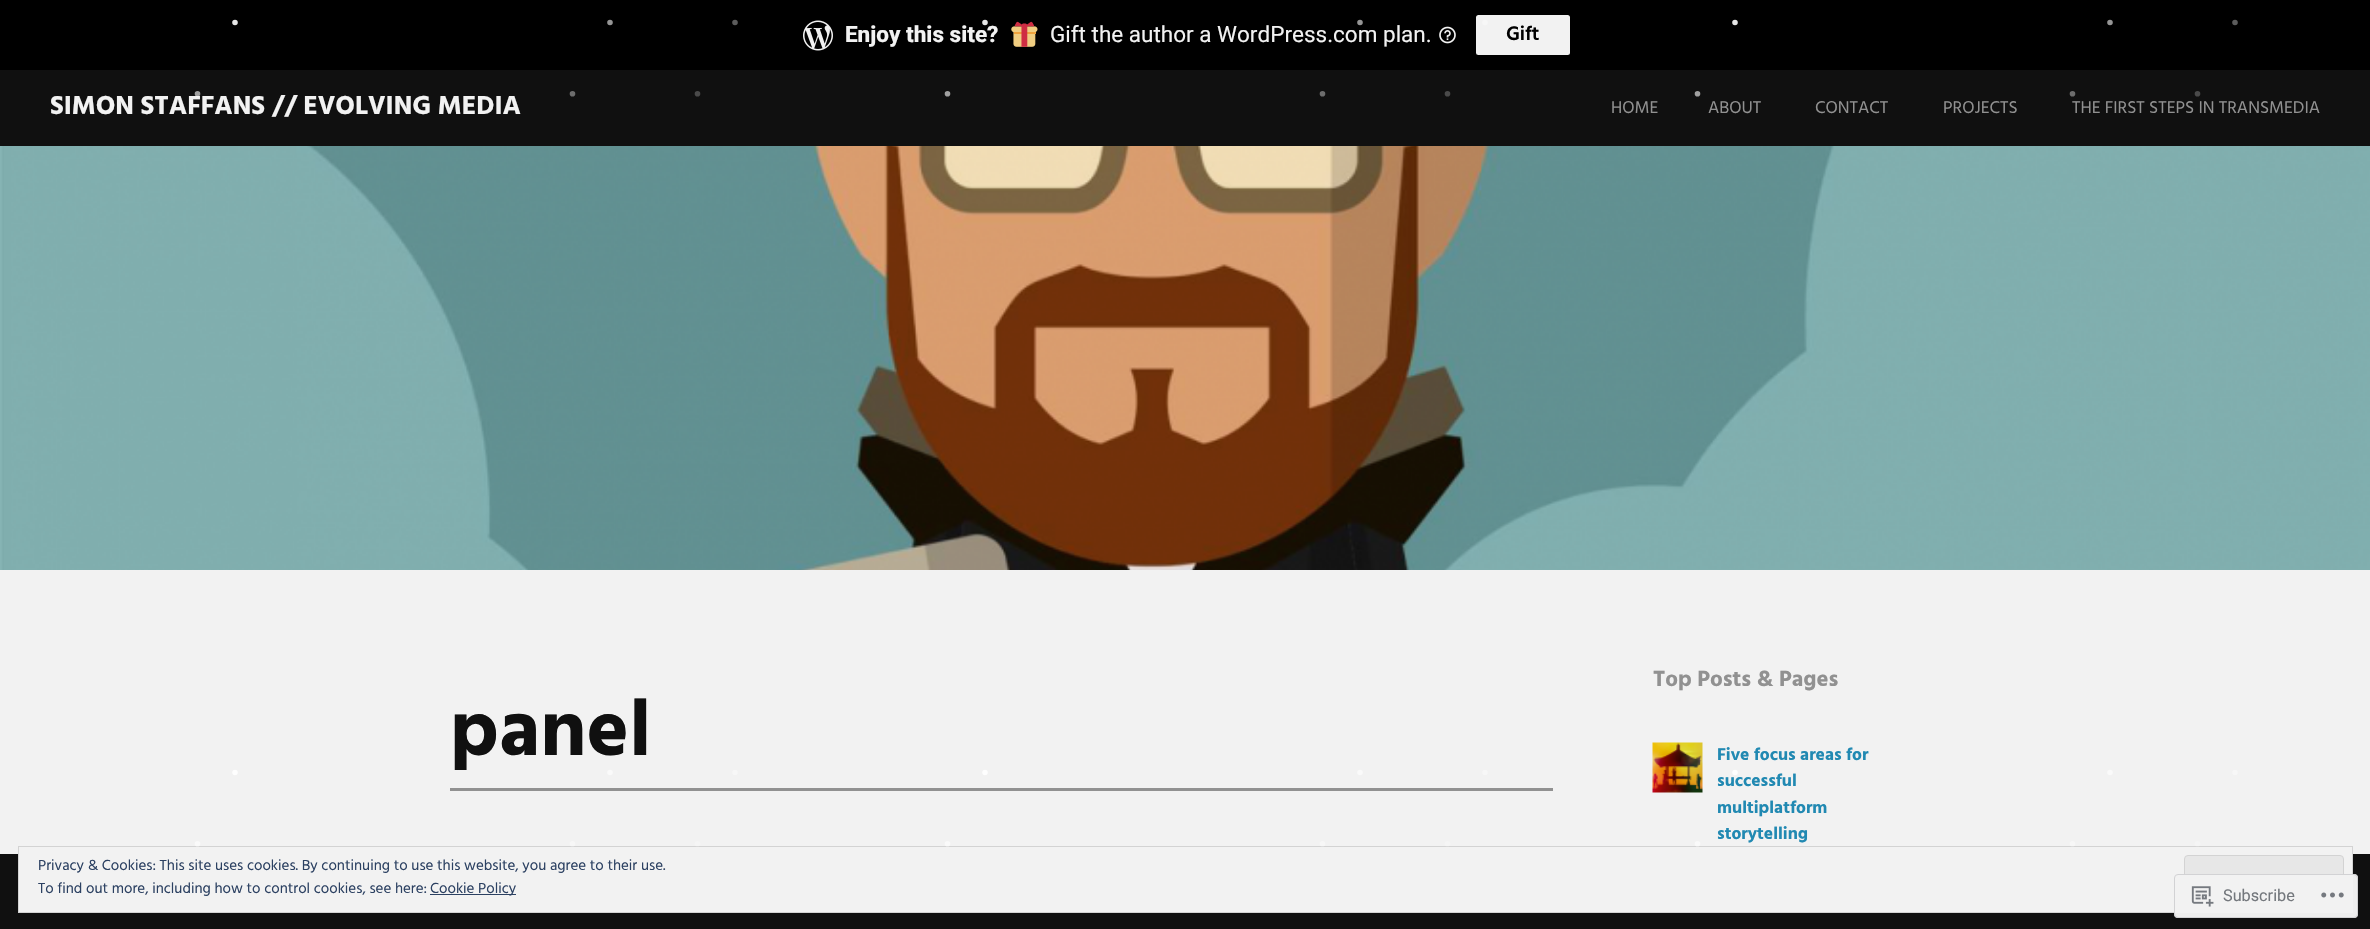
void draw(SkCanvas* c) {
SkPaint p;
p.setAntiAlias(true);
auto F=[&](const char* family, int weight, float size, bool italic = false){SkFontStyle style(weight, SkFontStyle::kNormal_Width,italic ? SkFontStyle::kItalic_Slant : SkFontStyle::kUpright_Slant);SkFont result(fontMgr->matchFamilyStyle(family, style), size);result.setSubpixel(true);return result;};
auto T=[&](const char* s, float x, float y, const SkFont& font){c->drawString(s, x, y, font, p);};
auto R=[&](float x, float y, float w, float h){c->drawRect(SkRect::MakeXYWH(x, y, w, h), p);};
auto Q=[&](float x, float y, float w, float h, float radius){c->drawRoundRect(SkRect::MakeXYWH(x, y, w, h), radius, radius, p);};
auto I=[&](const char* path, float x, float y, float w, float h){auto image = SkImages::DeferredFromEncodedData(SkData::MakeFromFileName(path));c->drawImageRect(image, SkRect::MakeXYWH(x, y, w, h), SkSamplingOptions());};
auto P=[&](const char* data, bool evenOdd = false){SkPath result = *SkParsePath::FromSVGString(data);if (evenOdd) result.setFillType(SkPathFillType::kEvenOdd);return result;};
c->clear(0xfff2f2f2);
p.setColor(0xff101010);
R(0,70,2370,76);
auto f1 = F("Hind",700,26.7);
p.setColor(0xfff2f2f2);
T("SIMON STAFFANS // EVOLVING MEDIA",50,114,f1);
p.setStroke(true);
p.setStrokeWidth(5.6);
p.setStrokeCap(SkPaint::kRound_Cap);
p.setColor(0x99ffffff);
p.setPathEffect(SkDashPathEffect::Make({{0,750}}, 0));
c->drawPath(P("M197.5 93.8h1500.3"),p);
p.setPathEffect(nullptr);
p.setStroke(false);
p.setColor(0xff101010);
R(0,854,2370,75);
p.setColor(0xfff2f2f2);
R(19,854,2333,58);
p.setStroke(true);
p.setStrokeWidth(1);
p.setStrokeCap(SkPaint::kButt_Cap);
p.setColor(0xffd3d3d3);
c->drawRect(SkRect::MakeXYWH(18.5,846.5,2334,66),p);
p.setStrokeWidth(5.6);
p.setStrokeCap(SkPaint::kRound_Cap);
p.setColor(0x99ffffff);
p.setPathEffect(SkDashPathEffect::Make({{0,750}}, 0));
c->drawPath(P("M197.5 843.8h1500.3"),p);
p.setPathEffect(nullptr);
p.setStroke(false);
p.setColor(0xff000000);
R(0,0,2370,70);
I("1.png",803,20,30,31);
auto f2 = F("Roboto",800,22.5);
p.setColor(0xfff2f2f2);
T("Enjoy this site?",845,42,f2);
I("2.png",1011,21,27,26);
auto f3 = F("Roboto",400,22.5);
T("Gift the author a WordPress.com plan.",1050,42,f3);
Q(1476,15,94,40,2.5);
auto f4 = F("Hind",600,20);
p.setColor(0xff000000);
T("Gift",1506,40,f4);
p.setStroke(true);
p.setColor(0xffe6e6e6);
p.setPathEffect(SkDashPathEffect::Make({{0,750}}, 0));
c->drawPath(P("M235 22.5h1500.2"),p);
p.setPathEffect(nullptr);
auto f5 = F("Hind",700,80);
p.setStroke(false);
p.setColor(0xff101010);
T("panel",450,755,f5);
I("5.png",1652,742,51,51);
auto f6 = F("Hind",700,17.5);
p.setColor(0xff2189b2);
T("successful",1717,786,f6);
p.setStroke(true);
p.setColor(0xfffefefe);
p.setPathEffect(SkDashPathEffect::Make({{0,750}}, 0));
c->drawPath(P("M235 772.5h1500.2"),p);
p.setPathEffect(nullptr);
p.setColor(0xff6d6d6d);
p.setPathEffect(SkDashPathEffect::Make({{0,750}}, 0));
c->drawPath(P("M-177.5 93.8h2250.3"),p);
p.setPathEffect(nullptr);
p.setStroke(false);
p.setColor(0xff2189b2);
T("storytelling",1717,839,f6);
p.setStroke(true);
p.setColor(0x63ffffff);
p.setPathEffect(SkDashPathEffect::Make({{0,750}}, 0));
c->drawPath(P("M-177.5 843.8h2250.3"),p);
p.setPathEffect(nullptr);
p.setColor(0xff959595);
p.setPathEffect(SkDashPathEffect::Make({{0,750}}, 0));
c->drawPath(P("M-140 22.5h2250.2"),p);
p.setPathEffect(nullptr);
p.setColor(0xfffafafa);
p.setPathEffect(SkDashPathEffect::Make({{0,750}}, 0));
c->drawPath(P("M-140 772.5h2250.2"),p);
p.setPathEffect(nullptr);
p.setColor(0xff4a4a4a);
p.setPathEffect(SkDashPathEffect::Make({{0,750}}, 0));
c->drawPath(P("M-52.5 93.8h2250.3"),p);
p.setPathEffect(nullptr);
p.setColor(0x3dffffff);
p.setPathEffect(SkDashPathEffect::Make({{0,750}}, 0));
c->drawPath(P("M-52.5 843.8h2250.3"),p);
p.setPathEffect(nullptr);
p.setColor(0x5cffffff);
p.setPathEffect(SkDashPathEffect::Make({{0,750}}, 0));
c->drawPath(P("M-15 22.5h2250.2"),p);
p.setPathEffect(nullptr);
p.setColor(0xfff7f7f7);
p.setPathEffect(SkDashPathEffect::Make({{0,750}}, 0));
c->drawPath(P("M-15 772.5h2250.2"),p);
p.setPathEffect(nullptr);
I("3.png",1439,26,17,18);
auto f7 = F("Hind",400,17.5);
p.setStroke(false);
p.setColor(0xff919191);
T("HOME",1611,113,f7);
T("ABOUT",1708,113,f7);
T("CONTACT",1815,113,f7);
T("PROJECTS",1943,113,f7);
T("THE FIRST STEPS IN TRANSMEDIA",2072,113,f7);
I("4.png",0,146,2370,424);
R(450,788,1103,3);
auto f8 = F("Hind",700,22.5);
T("Top Posts & Pages",1653,686,f8);
p.setColor(0xff2189b2);
T("Five focus areas for",1717,760,f6);
T("multiplatform",1717,813,f6);
auto f9 = F("Hind",400,15);
p.setColor(0xff2c4162);
T("Privacy & Cookies: This site uses cookies. By continuing to use this website, you agree to their use.",38,870,f9);
p.setColor(0xffe7e7e7);
c->drawRoundRect(SkRect::MakeXYWH(2184.5,855.5,159,48),3.5,3.5,p);
p.setStroke(true);
p.setStrokeWidth(1);
p.setStrokeCap(SkPaint::kButt_Cap);
p.setColor(0xffd3d3d3);
c->drawRoundRect(SkRect::MakeXYWH(2184.5,855.5,159,48),3.5,3.5,p);
p.setStroke(false);
p.setColor(0xff2c4162);
T("To find out more, including how to control cookies, see here:",38,893,f9);
R(430,894,86,1);
T("Cookie Policy",430,893,f9);
p.setColor(0xfaf2f2f2);
Q(2174,874,184,44,4);
p.setStroke(true);
p.setColor(0xfad1d1d3);
c->drawRoundRect(SkRect::MakeXYWH(2174.5,874.5,183,43),3.5,3.5,p);
I("6.png",2191,886,23,21);
auto f10 = F("Roboto",400,16.25);
p.setStroke(false);
p.setColor(0xff74787d);
T("Subscribe",2223,901,f10);
I("7.png",2321,892,23,6);
}
